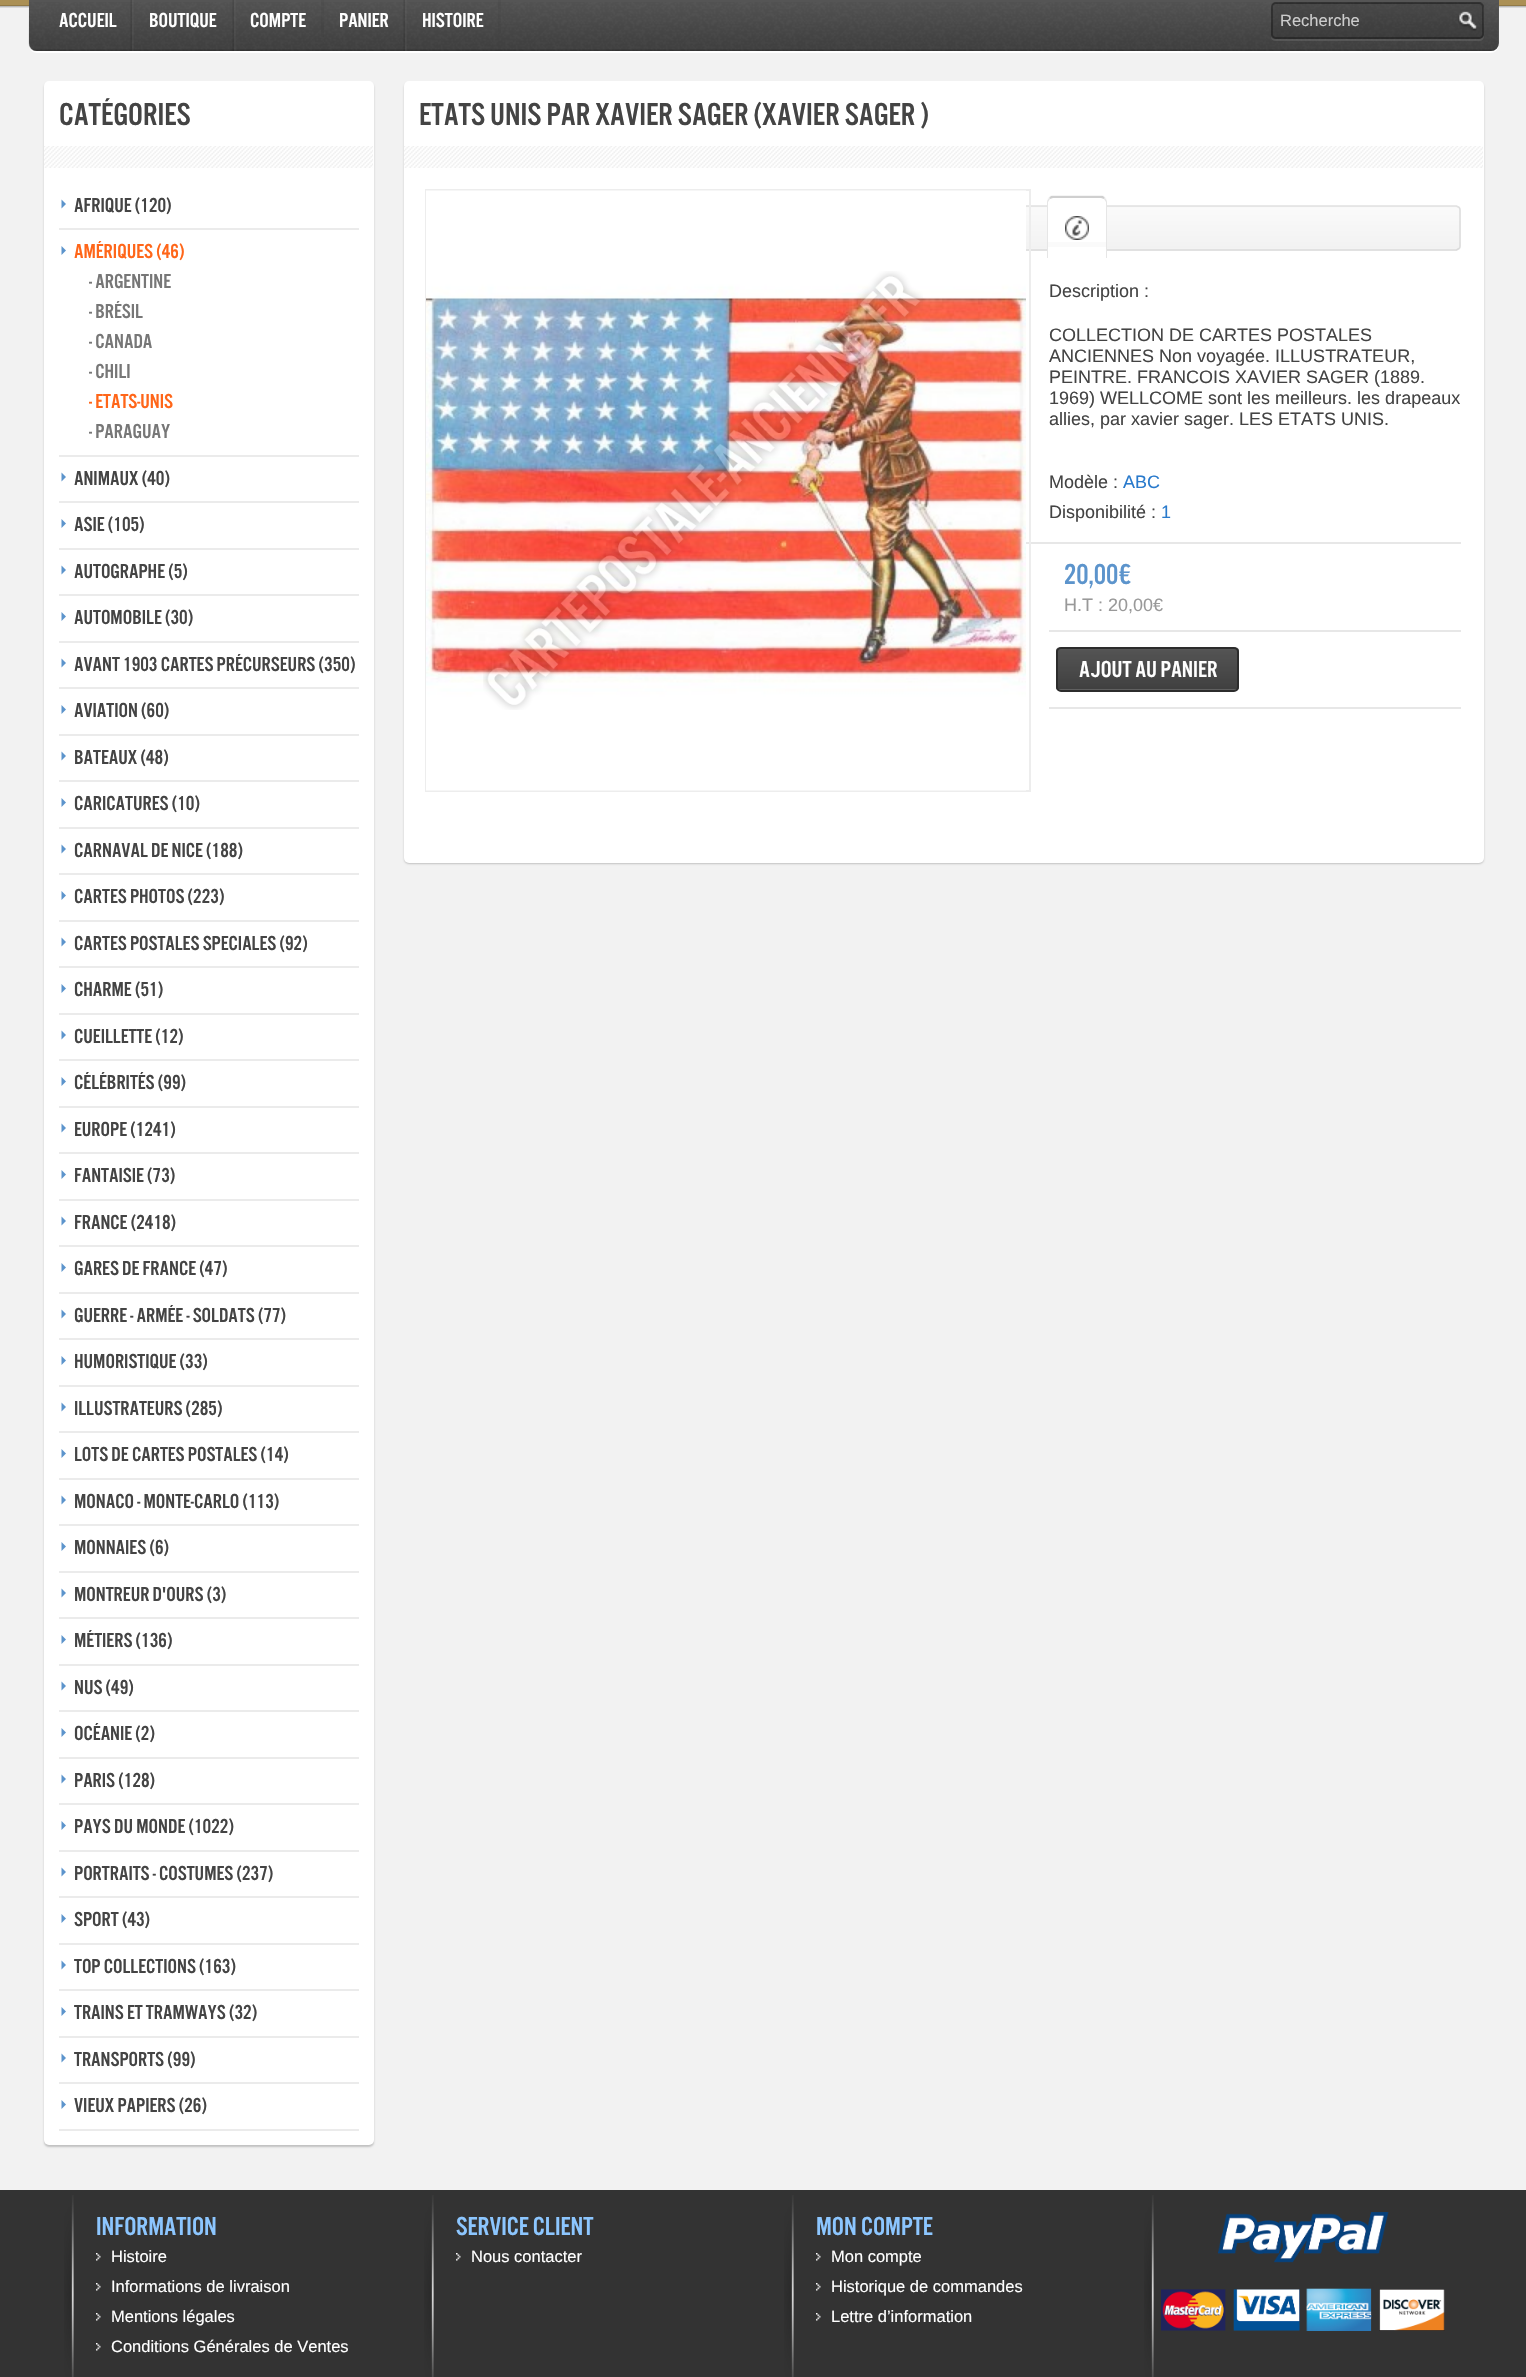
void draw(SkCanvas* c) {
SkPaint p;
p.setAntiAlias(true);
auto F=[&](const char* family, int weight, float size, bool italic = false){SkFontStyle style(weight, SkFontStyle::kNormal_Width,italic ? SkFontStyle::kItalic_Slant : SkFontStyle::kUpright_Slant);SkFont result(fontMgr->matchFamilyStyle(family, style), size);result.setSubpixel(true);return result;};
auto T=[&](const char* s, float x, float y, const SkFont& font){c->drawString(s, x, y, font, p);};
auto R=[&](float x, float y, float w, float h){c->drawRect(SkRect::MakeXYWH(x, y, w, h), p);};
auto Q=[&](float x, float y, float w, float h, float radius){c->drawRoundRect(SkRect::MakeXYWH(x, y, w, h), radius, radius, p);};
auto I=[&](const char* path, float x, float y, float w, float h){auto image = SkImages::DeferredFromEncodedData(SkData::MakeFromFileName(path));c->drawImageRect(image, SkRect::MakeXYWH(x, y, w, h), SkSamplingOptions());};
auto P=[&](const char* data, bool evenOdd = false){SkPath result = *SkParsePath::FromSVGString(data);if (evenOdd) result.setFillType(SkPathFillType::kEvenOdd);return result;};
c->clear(0xfff2f2f2);
p.setColor(0xffdadada);
R(0,7,1526,1);
p.setColor(0xffb9b9b9);
R(0,6,1526,1);
p.setColor(0xffab9055);
R(0,0,1526,5);
p.setColor(0xff917a48);
R(0,5,1526,1);
p.setColor(0xffffffff);
c->drawPath(P("M29 47c1 3 4 6 8 6h1454c4 0 8-4 8-8v-44l-1-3v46c0 4-3 7-7 7h-1455c-3 0-6-2-7-4z"),p);
p.setColor(0xff555555);
Q(29,-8,1470,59,8);
I("1.png",28,2,1471,49);
I("2.png",130,0,4,51);
auto f1 = F("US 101",400,21);
p.setColor(0xffffffff);
T("Accueil",59,27,f1);
I("3.png",232,0,4,51);
T("Boutique",149,27,f1);
p.setColor(0x1c2f2f2f);
R(321,0,3,37);
p.setColor(0xffffffff);
T("Compte",250,27,f1);
I("4.png",403,0,4,51);
T("Panier",339,27,f1);
p.setColor(0x1c2f2f2f);
R(498,0,3,34);
p.setColor(0xffffffff);
T("Histoire",422,27,f1);
p.setColor(0x1affffff);
c->drawPath(P("M1271 37c0 2 2 4 5 4h203c3 0 5-2 5-5v-28l-1-2l1 28c0 3-3 5-5 5h-204c-2 0-3-1-4-2z"),p);
p.setColor(0x1f000000);
Q(1271,2,213,37,5);
p.setColor(0x1a000000);
c->drawPath(P("M1275 4h205l1 1l1 3c0-2 0-5-3-5h-204c-3 0-3 3-3 5c0-2 1-4 3-4z"),p);
p.setStroke(true);
p.setStrokeWidth(2);
p.setColor(0x4d000000);
c->drawRoundRect(SkRect::MakeXYWH(1272,3,211,35),4,4,p);
auto f2 = F("Liberation Sans",400,16.5);
p.setStroke(false);
p.setColor(0xffcccccc);
T("Recherche",1280,26,f2);
I("5.png",1458,11,19,20);
p.setColor(0x33000000);
p.setMaskFilter(SkMaskFilter::MakeBlur(kNormal_SkBlurStyle, 1));
c->drawRoundRect(SkRect::MakeXYWH(44,83,330,2064),5,5,p);
p.setMaskFilter(nullptr);
p.setColor(0xffffffff);
Q(44,81,330,2064,5);
auto f3 = F("US 101",400,33);
p.setColor(0xff444444);
T("Catégories",59,125,f3);
I("6.png",44,146,329,22);
p.setColor(0xffebebeb);
R(59,228,300,2);
p.setColor(0xff5c94cc);
c->drawPath(P("M61.5 208.5v-9l4.5 4.5z"),p);
p.setColor(0xff444444);
T("Afrique (120)",74,212,f1);
p.setColor(0xffebebeb);
R(59,455,300,2);
p.setColor(0xff5c94cc);
c->drawPath(P("M61.5 255v-9l4.5 4.5z"),p);
p.setColor(0xffff6619);
T("Amériques (46)",74,258,f1);
p.setColor(0xff777777);
T("- Argentine",89,288,f1);
T("- Brésil",89,318,f1);
T("- Canada",89,348,f1);
T("- Chili",89,378,f1);
p.setColor(0xffff6619);
T("- Etats-unis",89,408,f1);
p.setColor(0xff777777);
T("- Paraguay",89,438,f1);
p.setColor(0xffebebeb);
R(59,501,300,2);
p.setColor(0xff5c94cc);
c->drawPath(P("M61.5 481.5v-9l4.5 4.5z"),p);
p.setColor(0xff444444);
T("Animaux (40)",74,485,f1);
p.setColor(0xffebebeb);
R(59,548,300,2);
p.setColor(0xff5c94cc);
c->drawPath(P("M61.5 528v-9l4.5 4.5z"),p);
p.setColor(0xff444444);
T("Asie (105)",74,531,f1);
p.setColor(0xffebebeb);
R(59,594,300,2);
p.setColor(0xff5c94cc);
c->drawPath(P("M61.5 574.5v-9l4.5 4.5z"),p);
p.setColor(0xff444444);
T("Autographe (5)",74,578,f1);
p.setColor(0xffebebeb);
R(59,641,300,2);
p.setColor(0xff5c94cc);
c->drawPath(P("M61.5 621v-9l4.5 4.5z"),p);
p.setColor(0xff444444);
T("Automobile (30)",74,624,f1);
p.setColor(0xffebebeb);
R(59,687,300,2);
p.setColor(0xff5c94cc);
c->drawPath(P("M61.5 667.5v-9l4.5 4.5z"),p);
p.setColor(0xff444444);
T("Avant 1903 Cartes précurseurs (350)",74,671,f1);
p.setColor(0xffebebeb);
R(59,734,300,2);
p.setColor(0xff5c94cc);
c->drawPath(P("M61.5 714v-9l4.5 4.5z"),p);
p.setColor(0xff444444);
T("Aviation (60)",74,717,f1);
p.setColor(0xffebebeb);
R(59,780,300,2);
p.setColor(0xff5c94cc);
c->drawPath(P("M61.5 760.5v-9l4.5 4.5z"),p);
p.setColor(0xff444444);
T("Bateaux (48)",74,764,f1);
p.setColor(0xffebebeb);
R(59,827,300,2);
p.setColor(0xff5c94cc);
c->drawPath(P("M61.5 807v-9l4.5 4.5z"),p);
p.setColor(0xff444444);
T("Caricatures (10)",74,810,f1);
p.setColor(0xffebebeb);
R(59,873,300,2);
p.setColor(0xff5c94cc);
c->drawPath(P("M61.5 853.5v-9l4.5 4.5z"),p);
p.setColor(0xff444444);
T("Carnaval de nice (188)",74,857,f1);
p.setColor(0xffebebeb);
R(59,920,300,2);
p.setColor(0xff5c94cc);
c->drawPath(P("M61.5 900v-9l4.5 4.5z"),p);
p.setColor(0xff444444);
T("Cartes photos (223)",74,903,f1);
p.setColor(0xffebebeb);
R(59,966,300,2);
p.setColor(0xff5c94cc);
c->drawPath(P("M61.5 946.5v-9l4.5 4.5z"),p);
p.setColor(0xff444444);
T("Cartes postales speciales (92)",74,950,f1);
p.setColor(0xffebebeb);
R(59,1013,300,2);
p.setColor(0xff5c94cc);
c->drawPath(P("M61.5 993v-9l4.5 4.5z"),p);
p.setColor(0xff444444);
T("Charme (51)",74,996,f1);
p.setColor(0xffebebeb);
R(59,1059,300,2);
p.setColor(0xff5c94cc);
c->drawPath(P("M61.5 1039.5v-9l4.5 4.5z"),p);
p.setColor(0xff444444);
T("Cueillette (12)",74,1043,f1);
p.setColor(0xffebebeb);
R(59,1106,300,2);
p.setColor(0xff5c94cc);
c->drawPath(P("M61.5 1086v-9l4.5 4.5z"),p);
p.setColor(0xff444444);
T("Célébrités (99)",74,1089,f1);
p.setColor(0xffebebeb);
R(59,1152,300,2);
p.setColor(0xff5c94cc);
c->drawPath(P("M61.5 1132.5v-9l4.5 4.5z"),p);
p.setColor(0xff444444);
T("Europe (1241)",74,1136,f1);
p.setColor(0xffebebeb);
R(59,1199,300,2);
p.setColor(0xff5c94cc);
c->drawPath(P("M61.5 1179v-9l4.5 4.5z"),p);
p.setColor(0xff444444);
T("Fantaisie (73)",74,1182,f1);
p.setColor(0xffebebeb);
R(59,1245,300,2);
p.setColor(0xff5c94cc);
c->drawPath(P("M61.5 1225.5v-9l4.5 4.5z"),p);
p.setColor(0xff444444);
T("France (2418)",74,1229,f1);
p.setColor(0xffebebeb);
R(59,1292,300,2);
p.setColor(0xff5c94cc);
c->drawPath(P("M61.5 1272v-9l4.5 4.5z"),p);
p.setColor(0xff444444);
T("Gares de france (47)",74,1275,f1);
p.setColor(0xffebebeb);
R(59,1338,300,2);
p.setColor(0xff5c94cc);
c->drawPath(P("M61.5 1318.5v-9l4.5 4.5z"),p);
p.setColor(0xff444444);
T("Guerre - Armée - Soldats (77)",74,1322,f1);
p.setColor(0xffebebeb);
R(59,1385,300,2);
p.setColor(0xff5c94cc);
c->drawPath(P("M61.5 1365v-9l4.5 4.5z"),p);
p.setColor(0xff444444);
T("Humoristique (33)",74,1368,f1);
p.setColor(0xffebebeb);
R(59,1431,300,2);
p.setColor(0xff5c94cc);
c->drawPath(P("M61.5 1411.5v-9l4.5 4.5z"),p);
p.setColor(0xff444444);
T("Illustrateurs (285)",74,1415,f1);
p.setColor(0xffebebeb);
R(59,1478,300,2);
p.setColor(0xff5c94cc);
c->drawPath(P("M61.5 1458v-9l4.5 4.5z"),p);
p.setColor(0xff444444);
T("Lots de Cartes Postales (14)",74,1461,f1);
p.setColor(0xffebebeb);
R(59,1524,300,2);
p.setColor(0xff5c94cc);
c->drawPath(P("M61.5 1504.5v-9l4.5 4.5z"),p);
p.setColor(0xff444444);
T("Monaco - monte-carlo (113)",74,1508,f1);
p.setColor(0xffebebeb);
R(59,1571,300,2);
p.setColor(0xff5c94cc);
c->drawPath(P("M61.5 1551v-9l4.5 4.5z"),p);
p.setColor(0xff444444);
T("Monnaies (6)",74,1554,f1);
p.setColor(0xffebebeb);
R(59,1617,300,2);
p.setColor(0xff5c94cc);
c->drawPath(P("M61.5 1597.5v-9l4.5 4.5z"),p);
p.setColor(0xff444444);
T("Montreur d'ours (3)",74,1601,f1);
p.setColor(0xffebebeb);
R(59,1664,300,2);
p.setColor(0xff5c94cc);
c->drawPath(P("M61.5 1644v-9l4.5 4.5z"),p);
p.setColor(0xff444444);
T("Métiers (136)",74,1647,f1);
p.setColor(0xffebebeb);
R(59,1710,300,2);
p.setColor(0xff5c94cc);
c->drawPath(P("M61.5 1690.5v-9l4.5 4.5z"),p);
p.setColor(0xff444444);
T("Nus (49)",74,1694,f1);
p.setColor(0xffebebeb);
R(59,1757,300,2);
p.setColor(0xff5c94cc);
c->drawPath(P("M61.5 1737v-9l4.5 4.5z"),p);
p.setColor(0xff444444);
T("Océanie (2)",74,1740,f1);
p.setColor(0xffebebeb);
R(59,1803,300,2);
p.setColor(0xff5c94cc);
c->drawPath(P("M61.5 1783.5v-9l4.5 4.5z"),p);
p.setColor(0xff444444);
T("Paris (128)",74,1787,f1);
p.setColor(0xffebebeb);
R(59,1850,300,2);
p.setColor(0xff5c94cc);
c->drawPath(P("M61.5 1830v-9l4.5 4.5z"),p);
p.setColor(0xff444444);
T("Pays du monde (1022)",74,1833,f1);
p.setColor(0xffebebeb);
R(59,1896,300,2);
p.setColor(0xff5c94cc);
c->drawPath(P("M61.5 1876.5v-9l4.5 4.5z"),p);
p.setColor(0xff444444);
T("Portraits - costumes (237)",74,1880,f1);
p.setColor(0xffebebeb);
R(59,1943,300,2);
p.setColor(0xff5c94cc);
c->drawPath(P("M61.5 1923v-9l4.5 4.5z"),p);
p.setColor(0xff444444);
T("Sport (43)",74,1926,f1);
p.setColor(0xffebebeb);
R(59,1989,300,2);
p.setColor(0xff5c94cc);
c->drawPath(P("M61.5 1969.5v-9l4.5 4.5z"),p);
p.setColor(0xff444444);
T("Top collections (163)",74,1973,f1);
p.setColor(0xffebebeb);
R(59,2036,300,2);
p.setColor(0xff5c94cc);
c->drawPath(P("M61.5 2016v-9l4.5 4.5z"),p);
p.setColor(0xff444444);
T("Trains et tramways (32)",74,2019,f1);
p.setColor(0xffebebeb);
R(59,2082,300,2);
p.setColor(0xff5c94cc);
c->drawPath(P("M61.5 2062.5v-9l4.5 4.5z"),p);
p.setColor(0xff444444);
T("Transports (99)",74,2066,f1);
p.setColor(0xffebebeb);
R(59,2129,300,2);
p.setColor(0xff5c94cc);
c->drawPath(P("M61.5 2109v-9l4.5 4.5z"),p);
p.setColor(0xff444444);
T("Vieux papiers (26)",74,2112,f1);
p.setColor(0x33000000);
p.setMaskFilter(SkMaskFilter::MakeBlur(kNormal_SkBlurStyle, 1));
c->drawRoundRect(SkRect::MakeXYWH(404,83,1080,781),5,5,p);
p.setMaskFilter(nullptr);
p.setColor(0xffffffff);
Q(404,81,1080,782,5);
p.setColor(0xff444444);
T("Etats Unis par Xavier Sager (Xavier Sager )",419,125,f3);
I("7.png",404,146,1079,22);
p.setColor(0xfffafafa);
Q(426,206,1035,45,5);
I("10.png",1026,206,435,43);
p.setStroke(true);
p.setStrokeWidth(1.5);
p.setColor(0xffe1e1e1);
c->drawPath(P("M428 207.5l2.5-1.5h1026l2.5 1.5"),p);
p.setColor(0xffdcdcdc);
c->drawPath(P("M1459 207.5c1 .5 1 1.5 1 2.5v36c0 1 0 2-1 2.5"),p);
p.setColor(0xffd9d9d9);
c->drawPath(P("M1459 248.5l-2.5 1.5h-1026l-2.5-1.5"),p);
p.setStroke(false);
p.setColor(0xffe7e7e7);
R(1026,542,435,2);
p.setStroke(true);
p.setStrokeWidth(2);
p.setColor(0xffededed);
c->drawRect(SkRect::MakeXYWH(426,190,604,601),p);
I("8.png",426,190,600,601);
I("9.png",483,271,440,439);
p.setStroke(false);
p.setColor(0xfff5f5f5);
c->drawPath(P("M1053 195c-4 0-6 4-6 7c0-3 3-6 6-6h48c3 0 6 3 6 6c0-3-2-7-6-7z"),p);
p.setColor(0xffffffff);
c->drawPath(P("M1053 197h48c3.5 0 6 2.5 6 6v55h-60v-55c0-3.5 2.5-6 6-6z"),p);
p.setColor(0xfffafafa);
R(1047,242,60,5);
p.setColor(0xffcfcfcf);
c->drawPath(P("M1053 198l-3 1l-1-1l2-2h52l2 2l-1 1l-3-1z"),p);
p.setColor(0xffe6e6e6);
c->drawPath(P("M1106 258h1v-56c0-1-1-3-2-4l-1 1l2 3zm-59 0h1v-56l2-3l-1-1c-1 1-2 3-2 4z"),p);
I("11.png",1065,216,24,24);
auto f4 = F("Liberation Sans",400,18);
p.setColor(0xff444444);
T("Description :",1049,297,f4);
T("COLLECTION DE CARTES POSTALES",1049,341,f4);
T("ANCIENNES Non voyagée. ILLUSTRATEUR,",1049,362,f4);
T("PEINTRE. FRANCOIS XAVIER SAGER (1889.",1049,383,f4);
T("1969) WELLCOME sont les meilleurs. les drapeaux",1049,404,f4);
T("allies, par xavier sager. LES ETATS UNIS.",1049,425,f4);
T("Modèle :",1049,488,f4);
p.setColor(0xff297acc);
T("ABC",1123,488,f4);
p.setColor(0xff444444);
T("Disponibilité :",1049,518,f4);
p.setColor(0xff297acc);
T("1",1161,518,f4);
p.setColor(0xffe7e7e7);
R(1049,630,412,2);
auto f5 = F("US 101",400,30);
p.setColor(0xff5c94cc);
T("20,00€",1064,584,f5);
p.setColor(0xff999999);
T("H.T : 20,00€",1064,611,f4);
p.setColor(0xffe7e7e7);
R(1049,707,412,2);
I("12.png",1056,647,183,45);
p.setStroke(true);
p.setColor(0xff2c2c2c);
c->drawRoundRect(SkRect::MakeXYWH(1057,648,181,43),4,4,p);
auto f6 = F("US 101",400,24);
p.setStroke(false);
p.setColor(0xffffffff);
T("Ajout au panier",1079,677,f6);
p.setColor(0xff333333);
R(0,2190,1526,187);
I("13.png",64,2195,10,182);
auto f7 = F("US 101",400,27);
p.setColor(0xff8cc6ff);
T("Information",96,2235,f7);
I("14.png",96,2253,5,8);
p.setColor(0xffffffff);
T("Histoire",111,2262,f2);
I("14.png",96,2283,5,8);
T("Informations de livraison",111,2292,f2);
I("14.png",96,2313,5,8);
T("Mentions légales",111,2322,f2);
I("14.png",96,2343,5,8);
T("Conditions Générales de Ventes",111,2352,f2);
I("15.png",424,2195,10,182);
p.setColor(0xff8cc6ff);
T("Service client",456,2235,f7);
I("16.png",456,2253,5,8);
p.setColor(0xffffffff);
T("Nous contacter",471,2262,f2);
I("13.png",784,2195,10,182);
p.setColor(0xff8cc6ff);
T("Mon compte",816,2235,f7);
I("14.png",816,2253,5,8);
p.setColor(0xffffffff);
T("Mon compte",831,2262,f2);
I("14.png",816,2283,5,8);
T("Historique de commandes",831,2292,f2);
I("14.png",816,2313,5,8);
T("Lettre d’information",831,2322,f2);
I("15.png",1144,2195,10,182);
I("17.png",1161,2212,284,119);
}
